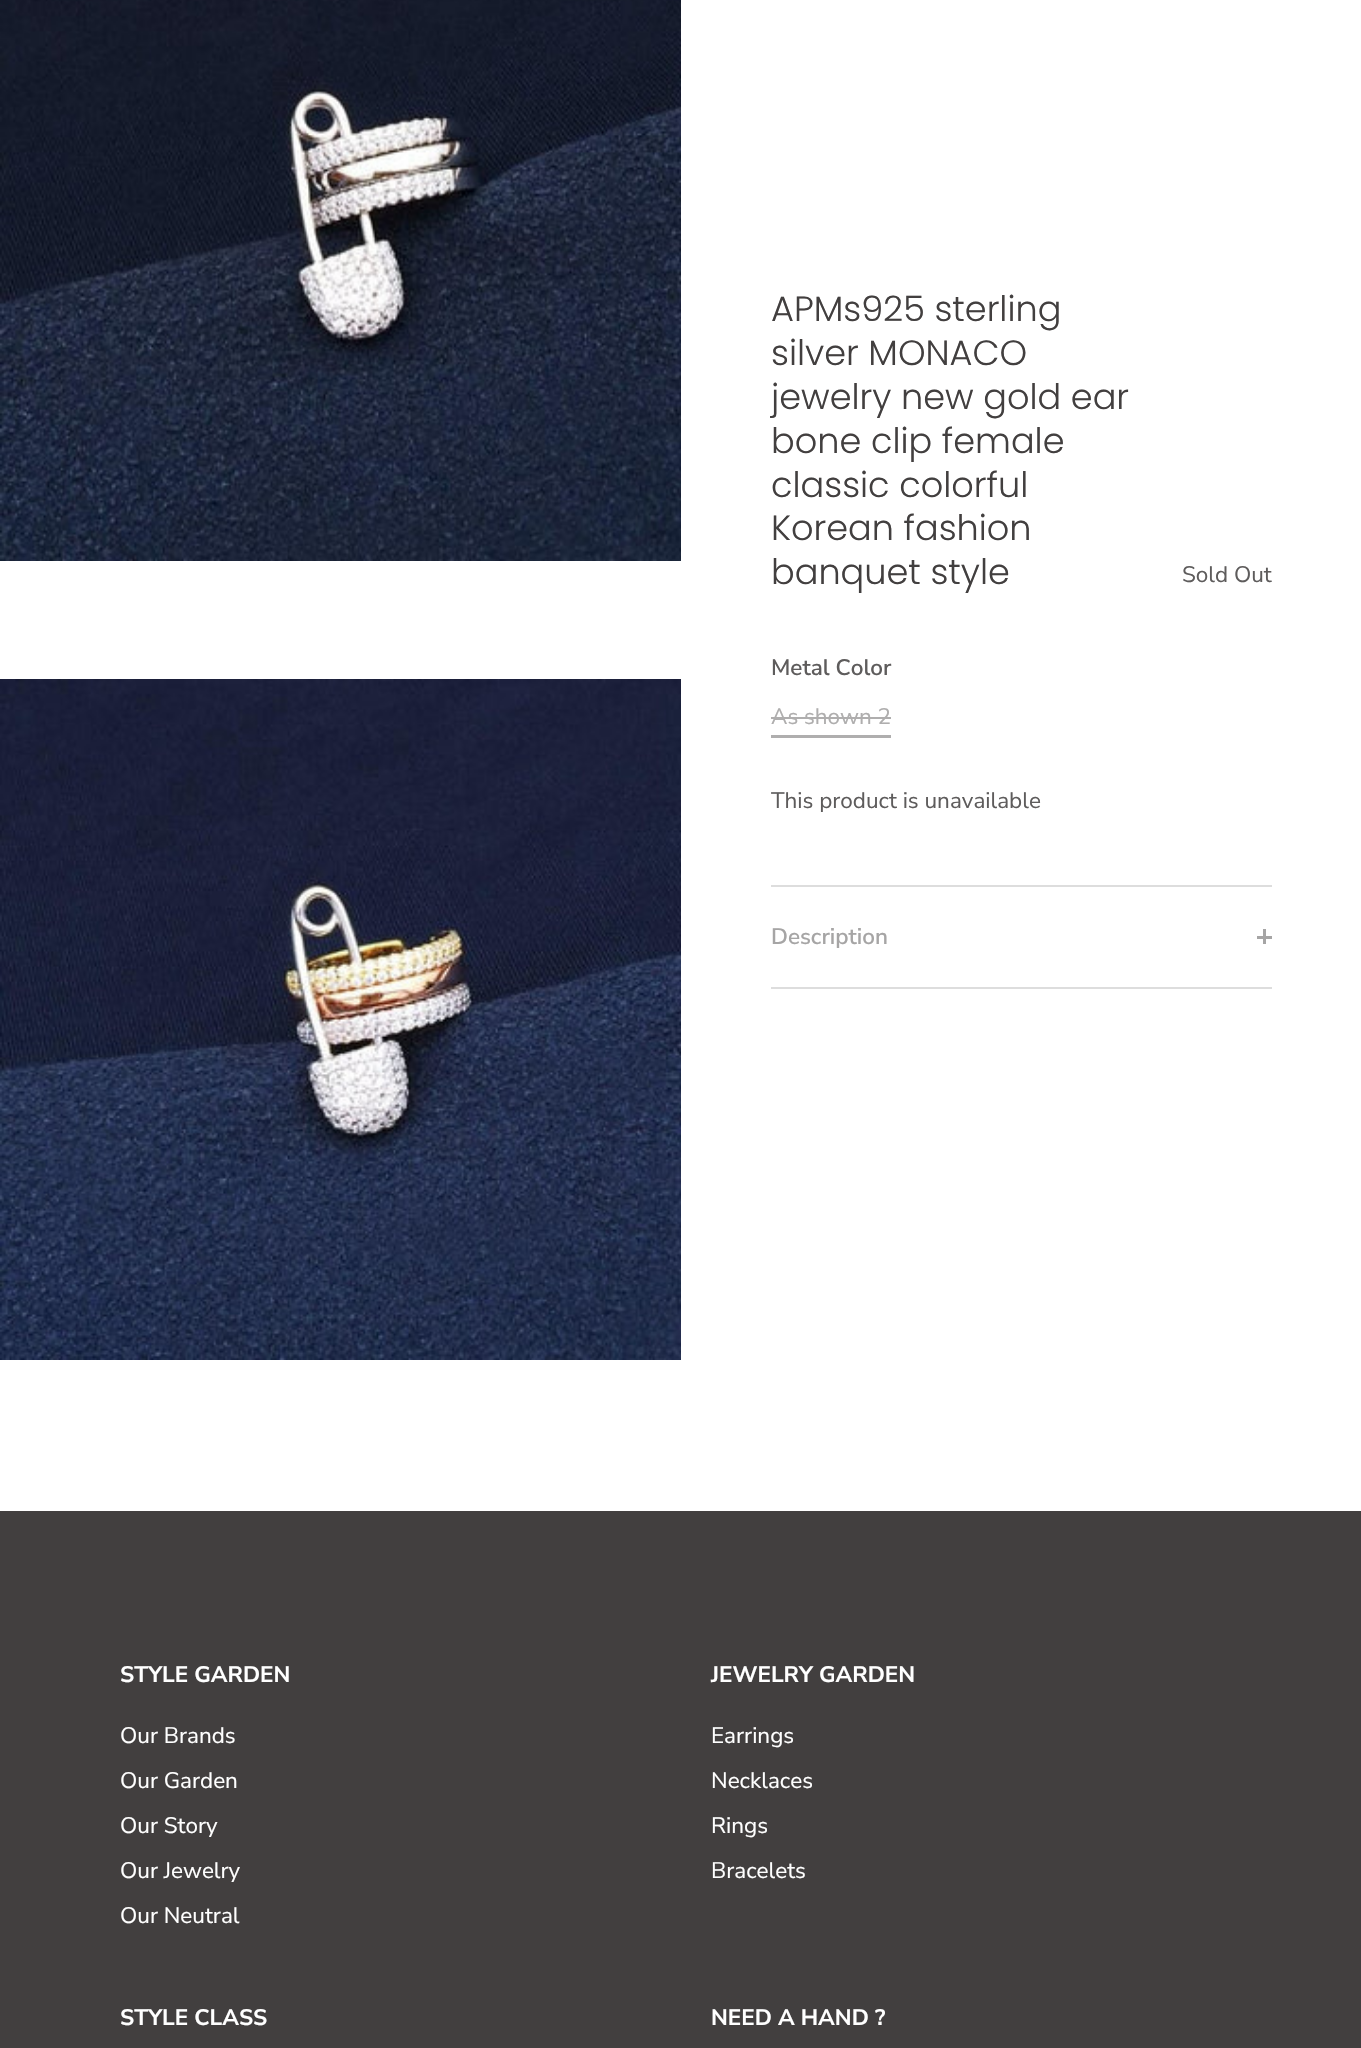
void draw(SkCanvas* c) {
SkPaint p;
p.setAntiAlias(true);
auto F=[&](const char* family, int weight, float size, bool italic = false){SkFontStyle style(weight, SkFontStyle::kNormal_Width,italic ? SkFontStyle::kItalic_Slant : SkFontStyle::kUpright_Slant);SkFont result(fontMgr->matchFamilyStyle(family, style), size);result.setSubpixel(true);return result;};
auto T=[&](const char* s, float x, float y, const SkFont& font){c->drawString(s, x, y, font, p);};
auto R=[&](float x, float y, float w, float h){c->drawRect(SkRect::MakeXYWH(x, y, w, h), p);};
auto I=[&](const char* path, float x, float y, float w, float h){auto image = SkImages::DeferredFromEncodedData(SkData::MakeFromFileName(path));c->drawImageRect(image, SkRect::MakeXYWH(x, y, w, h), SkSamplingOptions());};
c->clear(0xffffffff);
I("1.png",0,0,681,561);
I("2.png",0,679,681,681);
auto f1 = F("Poppins",300,35.1);
p.setColor(0xff423f3f);
T("APMs925 sterling",771,321,f1);
T("silver MONACO",771,365,f1);
T("jewelry new gold ear",771,409,f1);
T("bone clip female",771,453,f1);
T("classic colorful",771,497,f1);
T("Korean fashion",771,540,f1);
T("banquet style",771,584,f1);
auto f2 = F("Nunito Sans",400,22.5);
p.setColor(0xff5e5c5c);
T("Sold Out",1182,582,f2);
auto f3 = F("Nunito Sans",600,22.5);
T("Metal Color",771,675,f3);
p.setColor(0xffafaeae);
T("As shown 2",771,724,f2);
R(771,717,120,2);
R(771,735,120,3);
p.setColor(0xff5e5c5c);
T("This product is unavailable",771,808,f2);
p.setColor(0xffdddddd);
R(771,885,501,2);
R(771,987,501,2);
p.setColor(0xffa6a5a5);
T("Description",771,944,f3);
R(1257,936,15,3);
R(1263,929,3,15);
p.setColor(0xff423f3f);
R(0,1511,1361,537);
auto f4 = F("Nunito Sans",700,22.5);
p.setColor(0xffffffff);
T("STYLE GARDEN",120,1682,f4);
T("Our Brands",120,1743,f2);
T("Our Garden",120,1788,f2);
T("Our Story",120,1833,f2);
T("Our Jewelry",120,1878,f2);
T("Our Neutral",120,1923,f2);
T("JEWELRY GARDEN",711,1682,f4);
T("Earrings",711,1743,f2);
T("Necklaces",711,1788,f2);
T("Rings",711,1833,f2);
T("Bracelets",711,1878,f2);
T("STYLE CLASS",120,2025,f4);
T("NEED A HAND ?",711,2025,f4);
}
